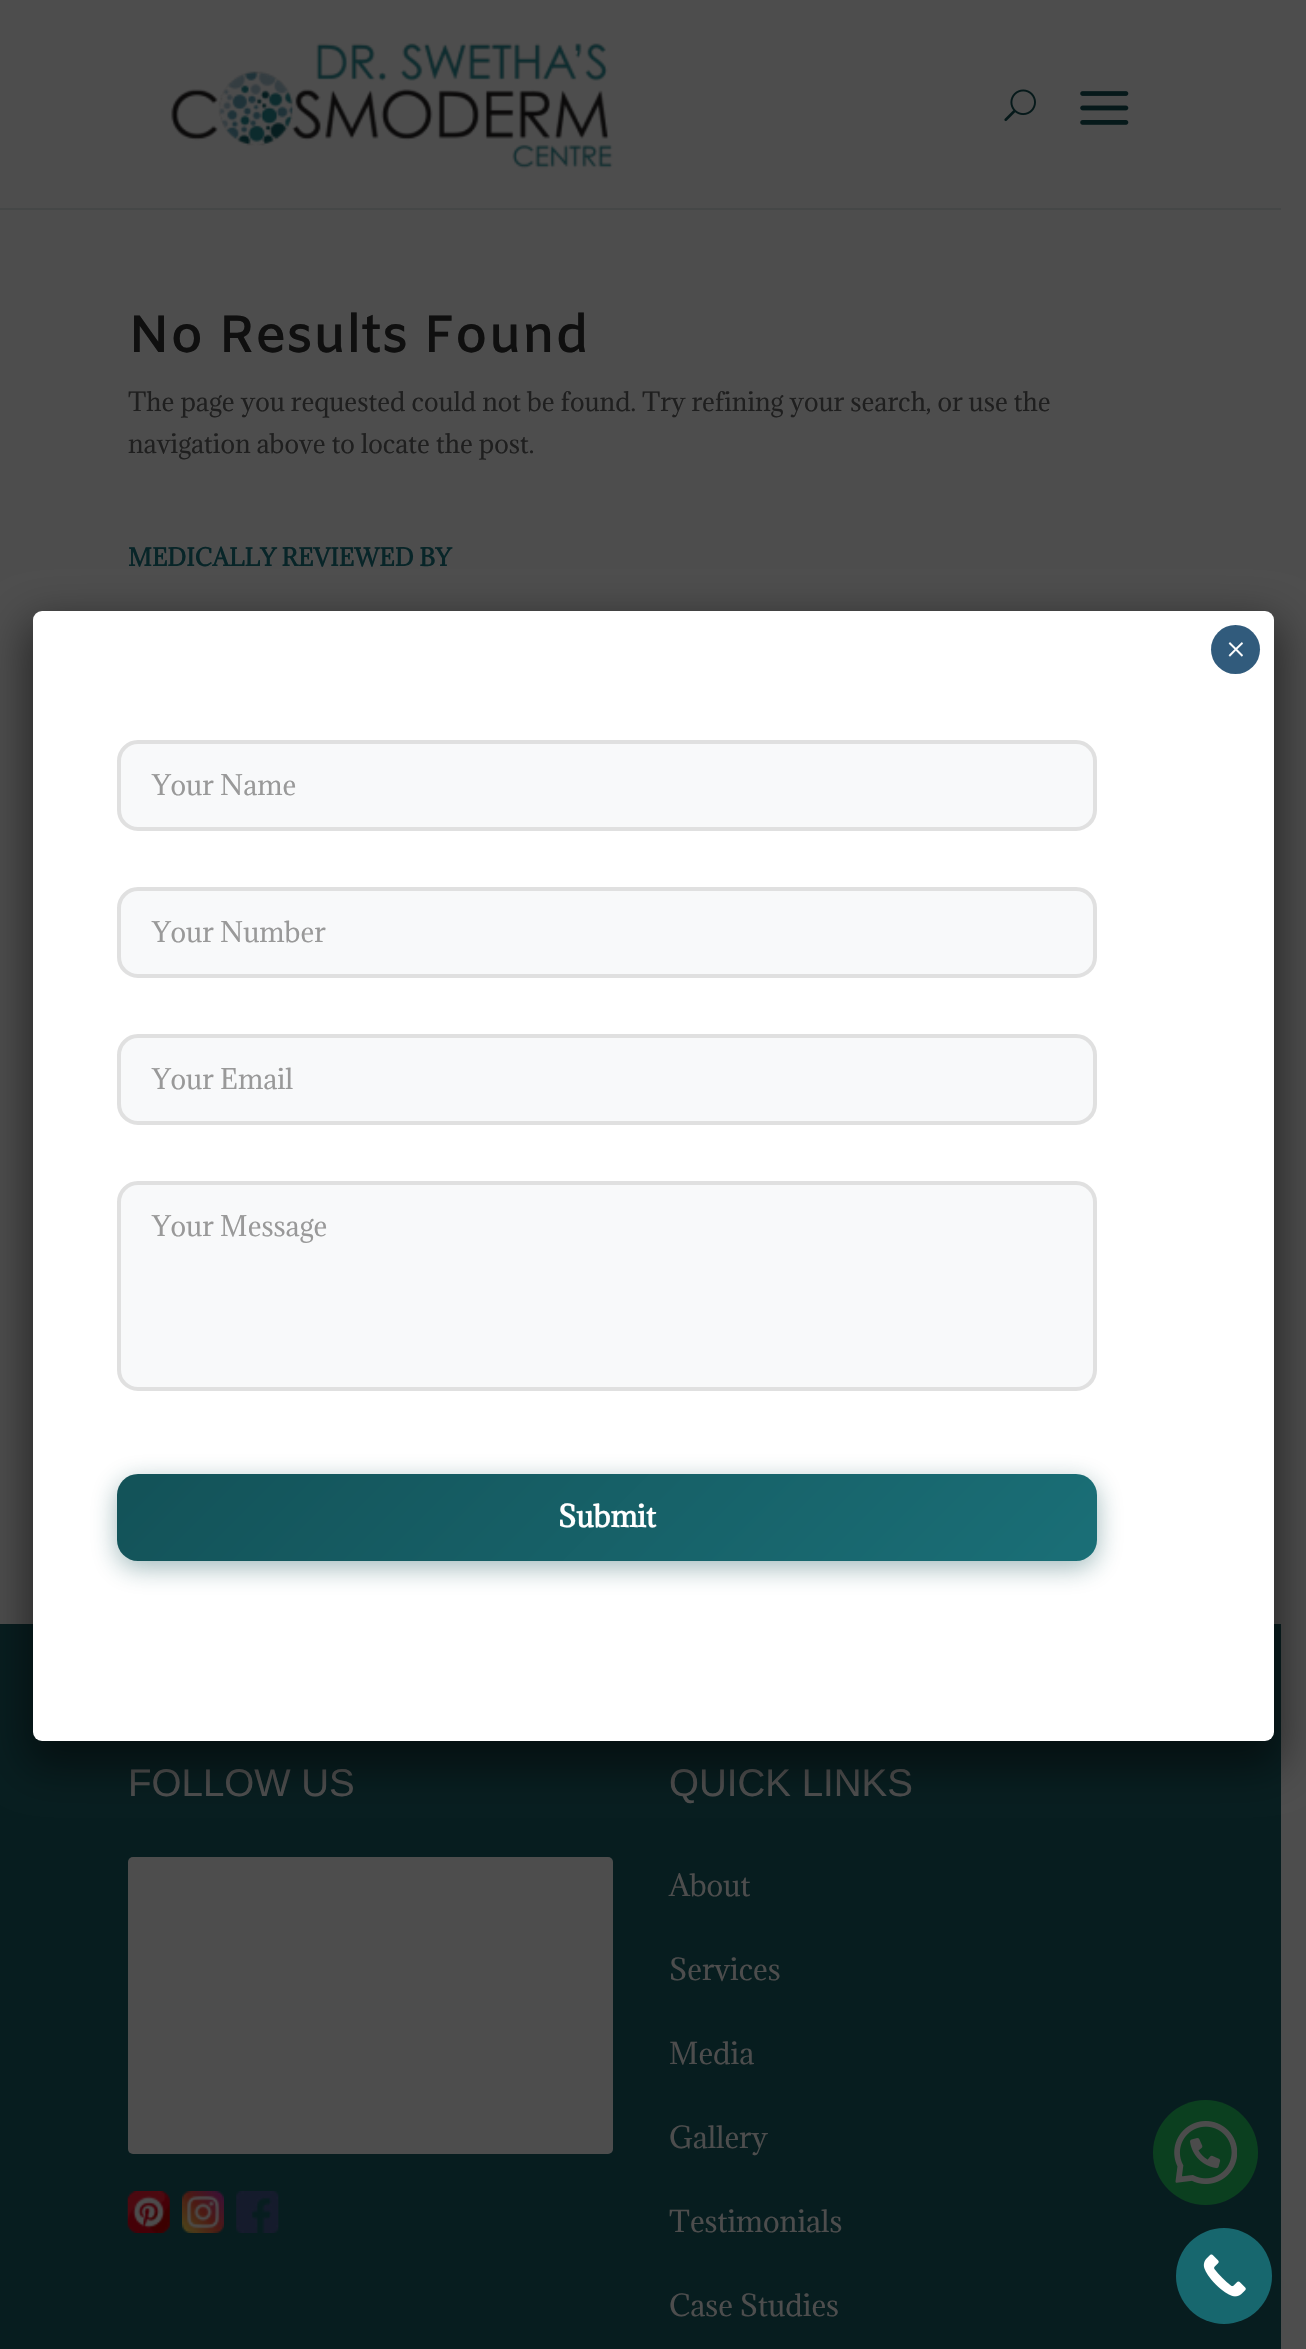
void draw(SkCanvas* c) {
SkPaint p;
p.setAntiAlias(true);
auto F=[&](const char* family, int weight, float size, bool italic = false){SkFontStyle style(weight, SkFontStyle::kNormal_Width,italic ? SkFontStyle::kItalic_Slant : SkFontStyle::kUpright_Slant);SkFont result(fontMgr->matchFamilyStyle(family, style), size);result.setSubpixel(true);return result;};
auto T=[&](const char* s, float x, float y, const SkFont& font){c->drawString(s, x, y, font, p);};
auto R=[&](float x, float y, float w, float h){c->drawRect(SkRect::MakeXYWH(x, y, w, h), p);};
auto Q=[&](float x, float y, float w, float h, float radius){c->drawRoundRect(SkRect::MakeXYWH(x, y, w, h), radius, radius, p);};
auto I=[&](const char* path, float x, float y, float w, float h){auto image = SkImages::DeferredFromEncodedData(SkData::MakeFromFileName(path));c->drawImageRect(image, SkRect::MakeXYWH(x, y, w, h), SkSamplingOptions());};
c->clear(0xff4d4d4d);
p.setColor(0xff454747);
R(0,208,1281,2);
I("1.png",171,43,442,126);
I("2.png",1004,89,32,33);
I("3.png",1080,91,49,34);
auto f1 = F("Amiko",600,52.5);
p.setColor(0xff0f0f0f);
T("No Results Found",128,352,f1);
auto f2 = F("Adamina",400,24.5);
p.setColor(0xff1f1f1f);
T("The page you requested could not be found. Try refining your search, or use the",128,411,f2);
T("navigation above to locate the post.",128,453,f2);
auto f3 = F("Adamina",700,22.75);
p.setColor(0xff082528);
T("MEDICALLY REVIEWED BY",128,566,f3);
p.setColor(0xff071d1f);
R(0,1624,1281,725);
auto f4 = F("Liberation Sans",400,38.5);
p.setColor(0xff4d4d4d);
T("FOLLOW US",128,1796,f4);
Q(128,1857,485,297,5);
I("4.png",127,2191,43,42);
I("5.png",182,2191,42,42);
I("6.png",236,2191,43,42);
T("QUICK LINKS",669,1796,f4);
auto f5 = F("Adamina",400,28);
T("About",669,1896,f5);
T("Services",669,1980,f5);
T("Media",669,2064,f5);
T("Gallery",669,2148,f5);
T("Testimonials",669,2232,f5);
T("Case Studies",669,2316,f5);
p.setColor(0x80020202);
p.setMaskFilter(SkMaskFilter::MakeBlur(kNormal_SkBlurStyle, 22));
c->drawRoundRect(SkRect::MakeXYWH(26,621,1255,1145),16,16,p);
p.setMaskFilter(nullptr);
p.setColor(0xffffffff);
Q(33,611,1241,1130,9);
p.setColor(0xff315b7c);
c->drawCircle(1235.5,649.5,24.5,p);
auto f6 = F("Liberation Serif",400,35);
p.setColor(0xffffffff);
T("×",1226,661,f6);
p.setColor(0xfff8f9fa);
c->drawRoundRect(SkRect::MakeXYWH(119,742,976,87),19,19,p);
p.setStroke(true);
p.setStrokeWidth(4);
p.setColor(0xffe0e0e0);
c->drawRoundRect(SkRect::MakeXYWH(119,742,976,87),19,19,p);
auto f7 = F("Adamina",400,26.25);
p.setStroke(false);
p.setColor(0xff999999);
T("Your Name",152,795,f7);
p.setColor(0xfff8f9fa);
c->drawRoundRect(SkRect::MakeXYWH(119,889,976,87),19,19,p);
p.setStroke(true);
p.setColor(0xffe0e0e0);
c->drawRoundRect(SkRect::MakeXYWH(119,889,976,87),19,19,p);
p.setStroke(false);
p.setColor(0xff999999);
T("Your Number",152,942,f7);
p.setColor(0xfff8f9fa);
c->drawRoundRect(SkRect::MakeXYWH(119,1036,976,87),19,19,p);
p.setStroke(true);
p.setColor(0xffe0e0e0);
c->drawRoundRect(SkRect::MakeXYWH(119,1036,976,87),19,19,p);
p.setStroke(false);
p.setColor(0xff999999);
T("Your Email",152,1089,f7);
p.setColor(0xfff8f9fa);
c->drawRoundRect(SkRect::MakeXYWH(119,1183,976,206),19,19,p);
p.setStroke(true);
p.setColor(0xffe0e0e0);
c->drawRoundRect(SkRect::MakeXYWH(119,1183,976,206),19,19,p);
p.setStroke(false);
p.setColor(0xff999999);
T("Your Message",152,1236,f7);
p.setColor(0x66135258);
p.setMaskFilter(SkMaskFilter::MakeBlur(kNormal_SkBlurStyle, 13));
c->drawRoundRect(SkRect::MakeXYWH(117,1481,980,87),21,21,p);
p.setMaskFilter(nullptr);
{
const SkColor colors[] = {0xff135258,0xff1a6f77};
const float stops[] = {0,1};
const SkPoint ends[] = {{340,1250}, {874,1784}};
p.setShader(SkGradientShader::MakeLinear(ends, colors, stops, 2, SkTileMode::kClamp));
p.setAlpha(255);
}
Q(117,1474,980,87,21);
auto f8 = F("Adamina",700,28);
p.setShader(nullptr);
p.setColor(0xffffffff);
T("Submit",558,1527,f8);
p.setColor(0xff0b3f1f);
c->drawCircle(1205.5,2152.5,52.5,p);
I("7.png",1174,2121,63,63);
p.setColor(0xff17676e);
c->drawCircle(1224,2276,48,p);
I("8.png",1203,2254,43,43);
}
